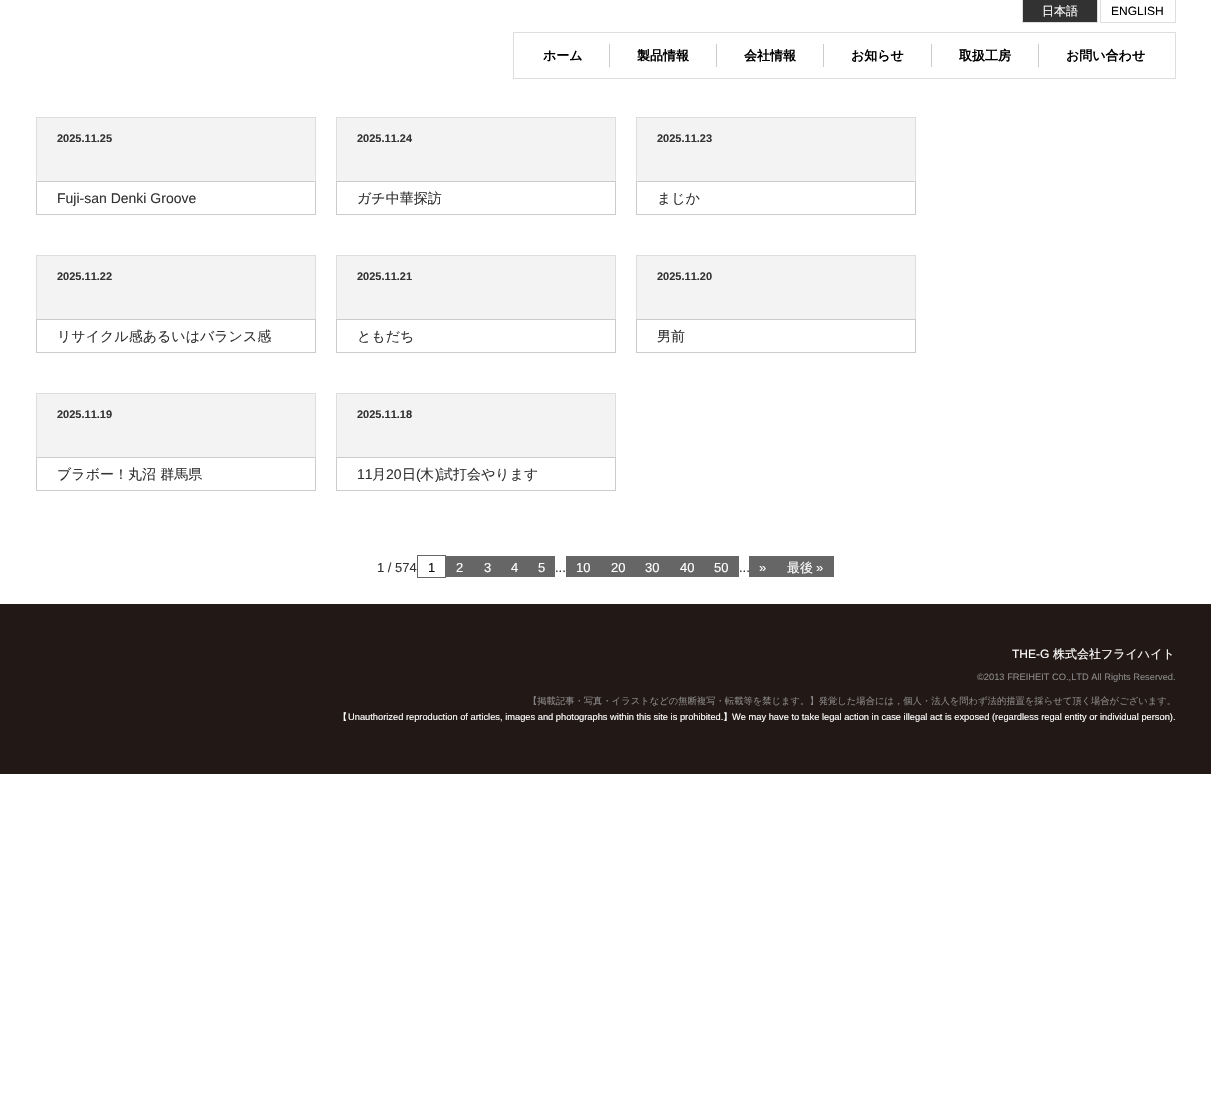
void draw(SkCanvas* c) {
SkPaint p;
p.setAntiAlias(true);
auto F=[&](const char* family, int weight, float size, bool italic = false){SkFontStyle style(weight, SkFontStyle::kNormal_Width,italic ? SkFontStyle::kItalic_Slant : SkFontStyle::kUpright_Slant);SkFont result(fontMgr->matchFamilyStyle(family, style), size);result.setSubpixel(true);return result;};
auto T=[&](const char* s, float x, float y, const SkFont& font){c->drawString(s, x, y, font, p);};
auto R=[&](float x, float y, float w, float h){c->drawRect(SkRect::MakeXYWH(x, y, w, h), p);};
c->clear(0xffffffff);
p.setColor(0xff323232);
R(1023,0,74,22);
p.setColor(0xffdedede);
R(1097,0,1,23);
R(1022,22,76,1);
R(1022,0,1,23);
auto f1 = F("WenQuanYi Zen Hei",500,12);
p.setColor(0xffffffff);
T("日本語",1042,15,f1);
p.setColor(0xffdedede);
R(1175,0,1,23);
R(1100,22,76,1);
R(1100,0,1,23);
auto f2 = F("Liberation Sans",400,12);
p.setColor(0xff000000);
T("ENGLISH",1111,15,f2);
p.setStroke(true);
p.setStrokeWidth(1);
p.setColor(0xffdedede);
c->drawRect(SkRect::MakeXYWH(513.5,32.5,662,46),p);
p.setStroke(false);
p.setColor(0xffcccccc);
R(609,44,1,23);
auto f3 = F("WenQuanYi Zen Hei",700,13);
p.setColor(0xff000000);
T("ホーム",543,60,f3);
p.setColor(0xffcccccc);
R(716,44,1,23);
p.setColor(0xff000000);
T("製品情報",637,60,f3);
p.setColor(0xffcccccc);
R(823,44,1,23);
p.setColor(0xff000000);
T("会社情報",744,60,f3);
p.setColor(0xffcccccc);
R(931,44,1,23);
p.setColor(0xff000000);
T("お知らせ",851,60,f3);
p.setColor(0xffcccccc);
R(1038,44,1,23);
p.setColor(0xff000000);
T("取扱工房",959,60,f3);
T("お問い合わせ",1066,60,f3);
p.setColor(0xfff4f3f3);
R(37,118,278,63);
p.setColor(0xffdedede);
R(36,117,280,1);
R(315,117,1,64);
R(36,117,1,64);
auto f4 = F("Liberation Sans",700,11);
p.setColor(0xff333333);
T("2025.11.25",57,142,f4);
p.setStroke(true);
p.setColor(0xffcccccc);
c->drawRect(SkRect::MakeXYWH(36.5,181.5,279,33),p);
auto f5 = F("Liberation Sans",400,14);
p.setStroke(false);
p.setColor(0xff333333);
T("Fuji-san Denki Groove",57,203,f5);
p.setColor(0xfff4f3f3);
R(337,118,278,63);
p.setColor(0xffdedede);
R(336,117,280,1);
R(615,117,1,64);
R(336,117,1,64);
p.setColor(0xff333333);
T("2025.11.24",357,142,f4);
p.setStroke(true);
p.setColor(0xffcccccc);
c->drawRect(SkRect::MakeXYWH(336.5,181.5,279,33),p);
auto f6 = F("WenQuanYi Zen Hei",500,14);
p.setStroke(false);
p.setColor(0xff333333);
T("ガチ中華探訪",357,203,f6);
p.setColor(0xfff4f3f3);
R(637,118,278,63);
p.setColor(0xffdedede);
R(636,117,280,1);
R(915,117,1,64);
R(636,117,1,64);
p.setColor(0xff333333);
T("2025.11.23",657,142,f4);
p.setStroke(true);
p.setColor(0xffcccccc);
c->drawRect(SkRect::MakeXYWH(636.5,181.5,279,33),p);
p.setStroke(false);
p.setColor(0xff333333);
T("まじか",657,203,f6);
p.setColor(0xfff4f3f3);
R(37,256,278,63);
p.setColor(0xffdedede);
R(36,255,280,1);
R(315,255,1,64);
R(36,255,1,64);
p.setColor(0xff333333);
T("2025.11.22",57,280,f4);
p.setStroke(true);
p.setColor(0xffcccccc);
c->drawRect(SkRect::MakeXYWH(36.5,319.5,279,33),p);
p.setStroke(false);
p.setColor(0xff333333);
T("リサイクル感あるいはバランス感",57,341,f6);
p.setColor(0xfff4f3f3);
R(337,256,278,63);
p.setColor(0xffdedede);
R(336,255,280,1);
R(615,255,1,64);
R(336,255,1,64);
p.setColor(0xff333333);
T("2025.11.21",357,280,f4);
p.setStroke(true);
p.setColor(0xffcccccc);
c->drawRect(SkRect::MakeXYWH(336.5,319.5,279,33),p);
p.setStroke(false);
p.setColor(0xff333333);
T("ともだち",357,341,f6);
p.setColor(0xfff4f3f3);
R(637,256,278,63);
p.setColor(0xffdedede);
R(636,255,280,1);
R(915,255,1,64);
R(636,255,1,64);
p.setColor(0xff333333);
T("2025.11.20",657,280,f4);
p.setStroke(true);
p.setColor(0xffcccccc);
c->drawRect(SkRect::MakeXYWH(636.5,319.5,279,33),p);
p.setStroke(false);
p.setColor(0xff333333);
T("男前",657,341,f6);
p.setColor(0xfff4f3f3);
R(37,394,278,63);
p.setColor(0xffdedede);
R(36,393,280,1);
R(315,393,1,64);
R(36,393,1,64);
p.setColor(0xff333333);
T("2025.11.19",57,418,f4);
p.setStroke(true);
p.setColor(0xffcccccc);
c->drawRect(SkRect::MakeXYWH(36.5,457.5,279,33),p);
p.setStroke(false);
p.setColor(0xff333333);
T("ブラボー！丸沼 群馬県",57,479,f6);
p.setColor(0xfff4f3f3);
R(337,394,278,63);
p.setColor(0xffdedede);
R(336,393,280,1);
R(615,393,1,64);
R(336,393,1,64);
p.setColor(0xff333333);
T("2025.11.18",357,418,f4);
p.setStroke(true);
p.setColor(0xffcccccc);
c->drawRect(SkRect::MakeXYWH(336.5,457.5,279,33),p);
p.setStroke(false);
p.setColor(0xff333333);
T("11",357,479,f5);
T("月",372,479,f6);
T("20",386,479,f5);
T("日",402,479,f6);
T("(",416,479,f5);
T("木",420,479,f6);
T(")",435,479,f5);
T("試打会やります",439,479,f6);
auto f7 = F("Liberation Sans",400,13);
T("1 / 574",377,572,f7);
p.setStroke(true);
p.setColor(0xff666666);
c->drawRect(SkRect::MakeXYWH(417.5,555.5,28,22),p);
p.setStroke(false);
p.setColor(0xff101010);
T("1",428,572,f7);
p.setColor(0xff666666);
R(446,556,109,21);
p.setColor(0xffffffff);
T("2",456,572,f7);
T("3",484,572,f7);
T("4",511,572,f7);
T("5",538,572,f7);
p.setColor(0xff333333);
T("...",555,572,f7);
p.setColor(0xff666666);
R(566,556,173,21);
p.setColor(0xffffffff);
T("10",576,572,f7);
T("20",611,572,f7);
T("30",645,572,f7);
T("40",680,572,f7);
T("50",714,572,f7);
p.setColor(0xff333333);
T("...",739,572,f7);
p.setColor(0xff666666);
R(749,556,85,21);
p.setColor(0xffffffff);
T("»",759,572,f7);
auto f8 = F("WenQuanYi Zen Hei",500,13);
T("最後",787,572,f8);
T("»",816,572,f7);
p.setColor(0xff221815);
R(0,604,1211,170);
p.setColor(0xffffffff);
T("THE-G",1012,658,f2);
T("株式会社フライハイト",1053,658,f1);
auto f9 = F("Liberation Sans",400,9.3);
p.setColor(0xff888888);
T("©2013 FREIHEIT CO.,LTD All Rights Reserved.",977,680,f9);
auto f10 = F("WenQuanYi Zen Hei",500,9.3);
T("【掲載記事・写真・イラストなどの無断複写・転載等を禁じます。】発覚した場合には，個人・法人を問わず法的措置を採らせて頂く場合がございます。",528,704,f10);
p.setColor(0xffffffff);
T("【",338,720,f10);
T("Unauthorized reproduction of articles, images and photographs within this site is prohibited.",348,720,f9);
T("】",723,720,f10);
T("We may have to take legal action in case illegal act is exposed (regardless regal entity or individual person).",732,720,f9);
}
